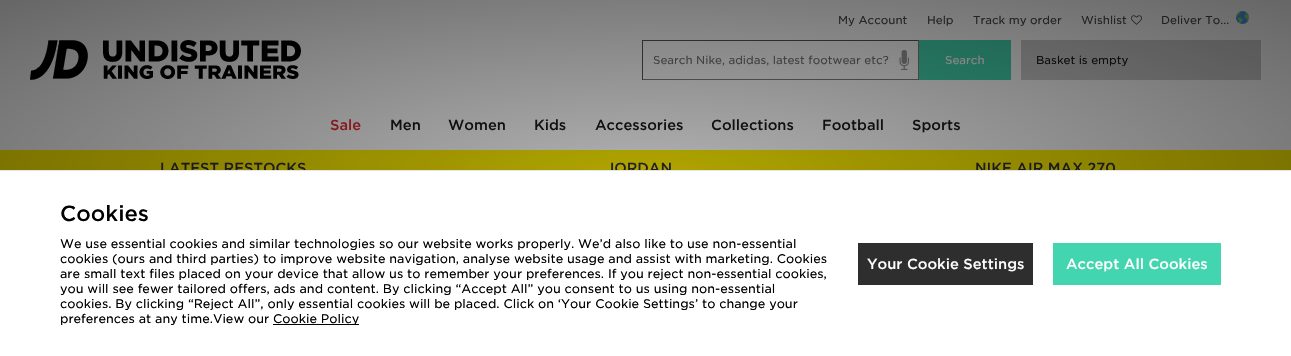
void draw(SkCanvas* c) {
SkPaint p;
p.setAntiAlias(true);
auto F=[&](const char* family, int weight, float size, bool italic = false){SkFontStyle style(weight, SkFontStyle::kNormal_Width,italic ? SkFontStyle::kItalic_Slant : SkFontStyle::kUpright_Slant);SkFont result(fontMgr->matchFamilyStyle(family, style), size);result.setSubpixel(true);return result;};
auto T=[&](const char* s, float x, float y, const SkFont& font){c->drawString(s, x, y, font, p);};
auto R=[&](float x, float y, float w, float h){c->drawRect(SkRect::MakeXYWH(x, y, w, h), p);};
auto I=[&](const char* path, float x, float y, float w, float h){auto image = SkImages::DeferredFromEncodedData(SkData::MakeFromFileName(path));c->drawImageRect(image, SkRect::MakeXYWH(x, y, w, h), SkSamplingOptions());};
c->clear(0xffffffff);
auto f1 = F("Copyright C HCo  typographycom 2",300,11);
p.setColor(0xff484848);
T("My Account",838,24,f1);
T("Help",927,24,f1);
T("Track my order",973,24,f1);
T("Wishlist",1081,24,f1);
I("1.png",1131,15,11,10);
T("Deliver To...",1161,24,f1);
I("2.png",1236,11,13,13);
I("3.png",30,40,271,40);
p.setColor(0xff555555);
R(642,40,277,1);
p.setColor(0xff808080);
R(918,40,1,40);
R(642,79,277,1);
p.setColor(0xff555555);
R(642,40,1,40);
p.setColor(0xff757575);
T("Search Nike, adidas, latest footwear etc?",653,64,f1);
I("4.png",899,50,10,20);
p.setColor(0xff43d5b0);
R(919,40,92,40);
p.setColor(0xffffffff);
T("Search",945,64,f1);
p.setColor(0xffcccbcc);
R(1021,40,240,40);
p.setColor(0xff1a1a1a);
T("Basket is empty",1036,64,f1);
auto f2 = F("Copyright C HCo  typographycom",300,14);
p.setColor(0xffe72933);
T("Sale",330,130,f2);
p.setColor(0xff1a1a1a);
T("Men",390,130,f2);
T("Women",448,130,f2);
T("Kids",534,130,f2);
T("Accessories",595,130,f2);
T("Collections",711,130,f2);
T("Football",822,130,f2);
T("Sports",912,130,f2);
p.setColor(0xffffee00);
R(0,150,1291,20);
p.setColor(0xff303030);
T("LATEST RESTOCKS",160,173,f2);
T("JORDAN",606,173,f2);
T("NIKE AIR MAX 270",975,173,f2);
{
const SkColor colors[] = {0x4d000000,0x99000000};
const float stops[] = {0,1};
SkMatrix m = SkMatrix::Translate(646,178).preScale(913,252);
p.setShader(SkGradientShader::MakeRadial({0, 0}, 1, colors, stops, 2, SkTileMode::kClamp, 0, &m));
p.setAlpha(255);
}
R(0,0,1291,170);
p.setShader(nullptr);
p.setColor(0xffffffff);
R(161,171,954,3);
p.setColor(0xffe5e5e5);
R(0,170,1291,1);
auto f3 = F("Copyright C HCo  typographycom",300,21);
p.setColor(0xff000000);
T("Cookies",60,221,f3);
auto f4 = F("Copyright C HCo  typographycom 2",300,12);
T("We use essential cookies and similar technologies so our website works properly. We’d also like to use non-essential",60,248,f4);
T("cookies (ours and third parties) to improve website navigation, analyse website usage and assist with marketing. Cookies",60,263,f4);
T("are small text files placed on your device that allow us to remember your preferences. If you reject non-essential cookies,",60,278,f4);
T("you will see fewer tailored offers, ads and content. By clicking “Accept All” you consent to us using non-essential",60,293,f4);
T("cookies. By clicking “Reject All”, only essential cookies will be placed. Click on ‘Your Cookie Settings’ to change your",60,308,f4);
T("preferences at any time.View our",60,323,f4);
R(273,324,86,1);
T("Cookie Policy",273,323,f4);
p.setColor(0xff2e2e2e);
R(858,243,175,42);
p.setColor(0xffffffff);
T("Your Cookie Settings",867,269,f2);
p.setColor(0xff43d5b0);
R(1053,243,168,42);
p.setColor(0xffffffff);
T("Accept All Cookies",1066,269,f2);
}
